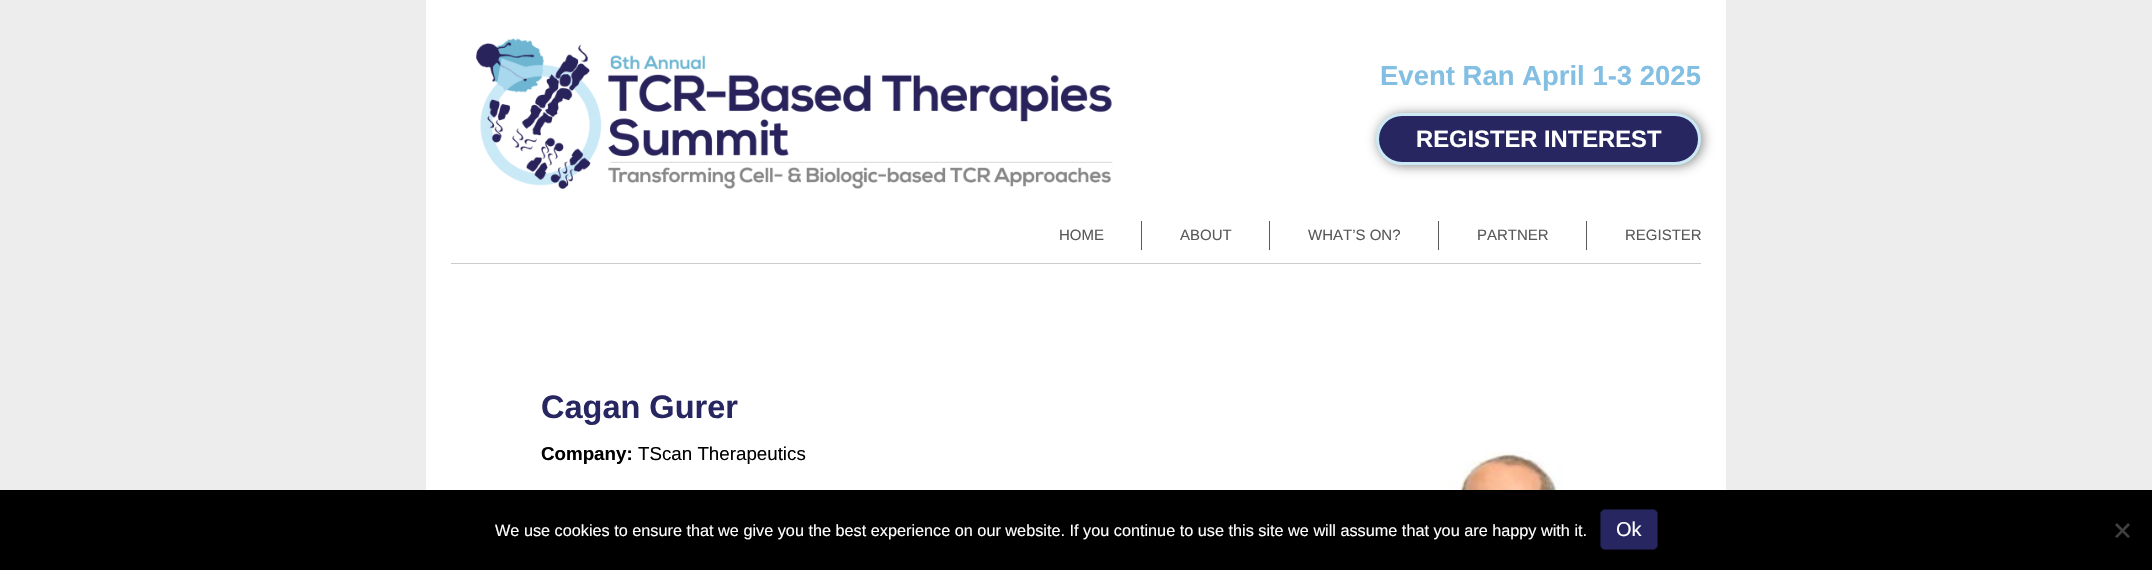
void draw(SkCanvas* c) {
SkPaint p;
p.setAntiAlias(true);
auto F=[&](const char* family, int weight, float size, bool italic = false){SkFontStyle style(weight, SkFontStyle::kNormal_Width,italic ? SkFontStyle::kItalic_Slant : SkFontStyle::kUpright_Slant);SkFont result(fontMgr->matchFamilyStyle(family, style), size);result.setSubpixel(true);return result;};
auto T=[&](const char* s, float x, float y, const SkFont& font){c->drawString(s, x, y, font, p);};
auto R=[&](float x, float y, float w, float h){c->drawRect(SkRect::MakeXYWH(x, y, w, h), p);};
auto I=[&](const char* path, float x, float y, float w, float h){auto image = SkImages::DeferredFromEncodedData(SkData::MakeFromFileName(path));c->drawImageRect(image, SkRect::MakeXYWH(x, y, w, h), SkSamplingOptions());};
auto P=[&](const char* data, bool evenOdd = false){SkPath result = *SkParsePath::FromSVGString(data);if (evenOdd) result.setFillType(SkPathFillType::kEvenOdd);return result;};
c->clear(0xffededed);
p.setColor(0xffffffff);
R(426,0,1300,490);
I("1.png",476,38,637,151);
auto f1 = F("Liberation Sans",700,27.5);
p.setColor(0xff82bfe2);
T("Event Ran April 1-3 2025",1380,85,f1);
p.setColor(0xff878787);
p.setMaskFilter(SkMaskFilter::MakeBlur(kNormal_SkBlurStyle, 6));
c->drawRoundRect(SkRect::MakeXYWH(1378,114,325,52),26,26,p);
p.setMaskFilter(nullptr);
p.setColor(0xff272661);
c->drawRoundRect(SkRect::MakeXYWH(1377.5,114.5,322,49),24.5,24.5,p);
p.setStroke(true);
p.setStrokeWidth(3);
p.setColor(0xffcceaf5);
c->drawRoundRect(SkRect::MakeXYWH(1377.5,114.5,322,49),24.5,24.5,p);
auto f2 = F("Liberation Sans",700,23.75);
p.setStroke(false);
p.setColor(0xffffffff);
T("REGISTER INTEREST",1416,147,f2);
auto f3 = F("Liberation Sans",400,15);
p.setColor(0xff59595b);
T("HOME",1059,240,f3);
R(1141,221,1,29);
T("ABOUT",1180,240,f3);
R(1269,221,1,29);
T("WHAT’S ON?",1308,240,f3);
R(1438,221,1,29);
T("PARTNER",1477,240,f3);
R(1586,221,1,29);
T("REGISTER",1625,240,f3);
p.setColor(0xffcccccc);
R(451,263,1250,1);
auto f4 = F("Liberation Sans",700,32.5);
p.setColor(0xff272661);
T("Cagan Gurer",541,418,f4);
auto f5 = F("Liberation Sans",700,18.75);
p.setColor(0xff000000);
T("Company:",541,460,f5);
auto f6 = F("Liberation Sans",400,18.75);
T("TScan Therapeutics",638,460,f6);
I("2.png",1448,451,117,39);
R(0,490,2152,80);
auto f7 = F("Liberation Sans",400,16.25);
p.setColor(0xffffffff);
T("We use cookies to ensure that we give you the best experience on our website. If you continue to use this site we will assume that you are happy with it.",495,536,f7);
p.setColor(0xff272661);
c->drawRoundRect(SkRect::MakeXYWH(1600.5,509.5,57,40),4.5,4.5,p);
p.setStroke(true);
p.setStrokeWidth(1);
p.setColor(0xff151535);
c->drawRoundRect(SkRect::MakeXYWH(1600.5,509.5,57,40),4.5,4.5,p);
auto f8 = F("Liberation Sans",400,20);
p.setStroke(false);
p.setColor(0xffffffff);
T("Ok",1616,536,f8);
p.setColor(0xff404040);
c->drawPath(P("M2128 523l2 2l-13 13l-2-1.5z"),p);
c->drawPath(P("M2115 525l2-2l13 13.5l-2 1.5z"),p);
}
